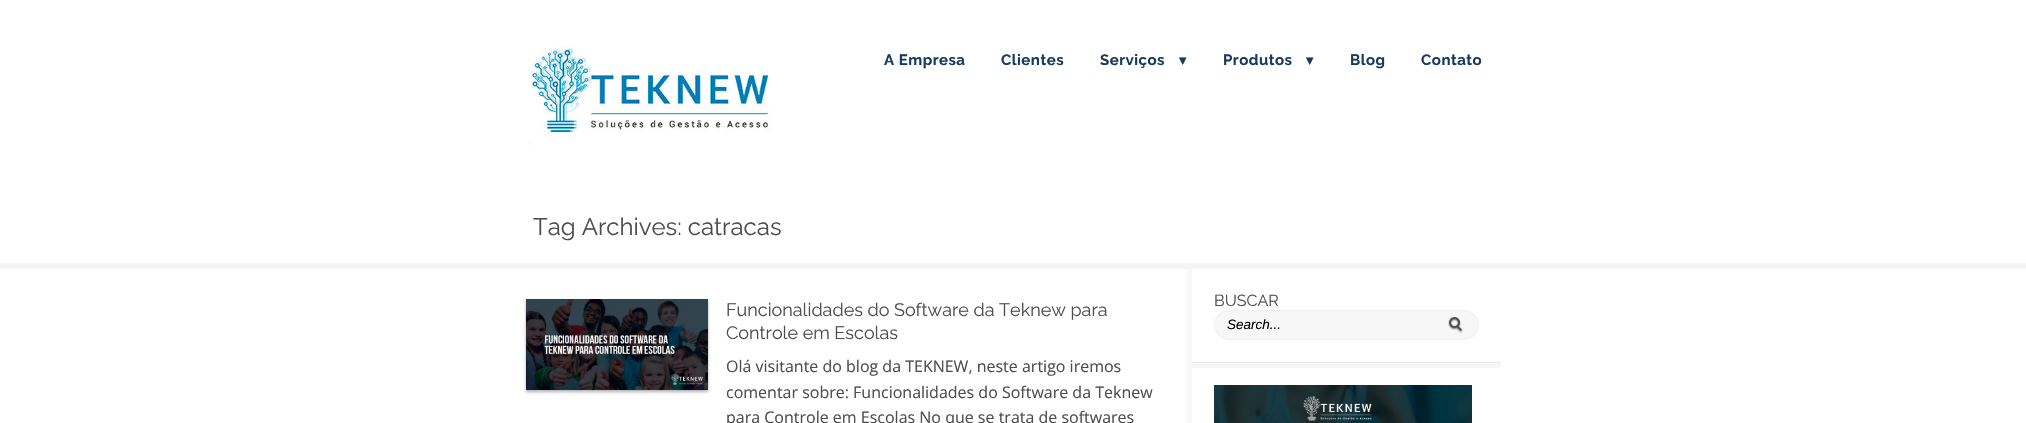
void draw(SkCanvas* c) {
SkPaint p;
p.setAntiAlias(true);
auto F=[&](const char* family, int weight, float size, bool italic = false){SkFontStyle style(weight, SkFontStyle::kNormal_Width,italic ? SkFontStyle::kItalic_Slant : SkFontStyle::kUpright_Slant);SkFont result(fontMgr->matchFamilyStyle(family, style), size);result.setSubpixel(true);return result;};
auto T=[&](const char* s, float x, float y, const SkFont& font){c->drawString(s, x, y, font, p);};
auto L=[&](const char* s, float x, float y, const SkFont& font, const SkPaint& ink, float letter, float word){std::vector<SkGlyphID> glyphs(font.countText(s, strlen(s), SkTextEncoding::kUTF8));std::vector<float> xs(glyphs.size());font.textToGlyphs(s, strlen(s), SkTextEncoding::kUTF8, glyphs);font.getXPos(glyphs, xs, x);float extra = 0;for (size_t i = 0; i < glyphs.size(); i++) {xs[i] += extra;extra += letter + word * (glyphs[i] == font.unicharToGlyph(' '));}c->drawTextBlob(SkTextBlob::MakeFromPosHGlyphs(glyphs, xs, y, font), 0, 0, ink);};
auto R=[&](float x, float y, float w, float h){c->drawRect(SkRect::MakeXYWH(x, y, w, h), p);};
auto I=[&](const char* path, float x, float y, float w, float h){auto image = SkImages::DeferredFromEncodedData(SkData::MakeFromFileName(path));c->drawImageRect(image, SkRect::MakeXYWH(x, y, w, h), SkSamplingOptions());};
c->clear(0xffffffff);
I("1.png",529,46,243,99);
auto f1 = F("Raleway",700,15);
p.setColor(0xff173a5e);
L("A Empresa",884,65,f1,p,.5,0);
L("Clientes",1001,65,f1,p,.5,0);
L("Serviços",1100,65,f1,p,.5,0);
auto f2 = F("DejaVu Sans",700,14);
L("▾",1179,65,f2,p,.5,0);
L("Produtos",1223,65,f1,p,.5,0);
L("▾",1306,65,f2,p,.5,0);
L("Blog",1350,65,f1,p,.5,0);
L("Contato",1421,65,f1,p,.5,0);
p.setColor(0xfff5f5f5);
R(0,263,2026,6);
auto f3 = F("Raleway",400,24);
p.setColor(0xff4d4d4d);
T("Tag Archives: catracas",533,235,f3);
p.setColor(0x4d000000);
p.setMaskFilter(SkMaskFilter::MakeBlur(kNormal_SkBlurStyle, 1.5));
c->drawRect(SkRect::MakeXYWH(526,301,182,91),p);
p.setMaskFilter(nullptr);
I("2.png",526,299,182,91);
auto f4 = F("Raleway",400,18);
p.setColor(0xff4d4d4d);
T("Funcionalidades do Software da Teknew para",726,316,f4);
T("Controle em Escolas",726,339,f4);
auto f5 = F("Open Sans",400,16);
T("Olá visitante do blog da TEKNEW, neste artigo iremos",726,372,f5);
T("comentar sobre: Funcionalidades do Software da Teknew",726,398,f5);
T("para Controle em Escolas No que se trata de softwares",726,423,f5);
p.setColor(0xfff8f8f8);
R(1186,269,6,154);
p.setColor(0xfff7f7f7);
R(1192,363,309,5);
p.setColor(0xffeaeaea);
R(1192,362,309,1);
auto f6 = F("Raleway",400,16);
p.setColor(0xff4d4d4d);
T("BUSCAR",1214,306,f6);
p.setColor(0xfff8f7f7);
c->drawRoundRect(SkRect::MakeXYWH(1214.5,310.5,264,29),14.5,14.5,p);
p.setStroke(true);
p.setStrokeWidth(1);
p.setColor(0xfff0f0f0);
c->drawRoundRect(SkRect::MakeXYWH(1214.5,310.5,264,29),14.5,14.5,p);
auto f7 = F("Liberation Sans",400,13.5,true);
p.setStroke(false);
p.setColor(0xff000000);
T("Search...",1227,329,f7);
I("3.png",1448,317,15,16);
I("4.png",1214,385,258,38);
}
